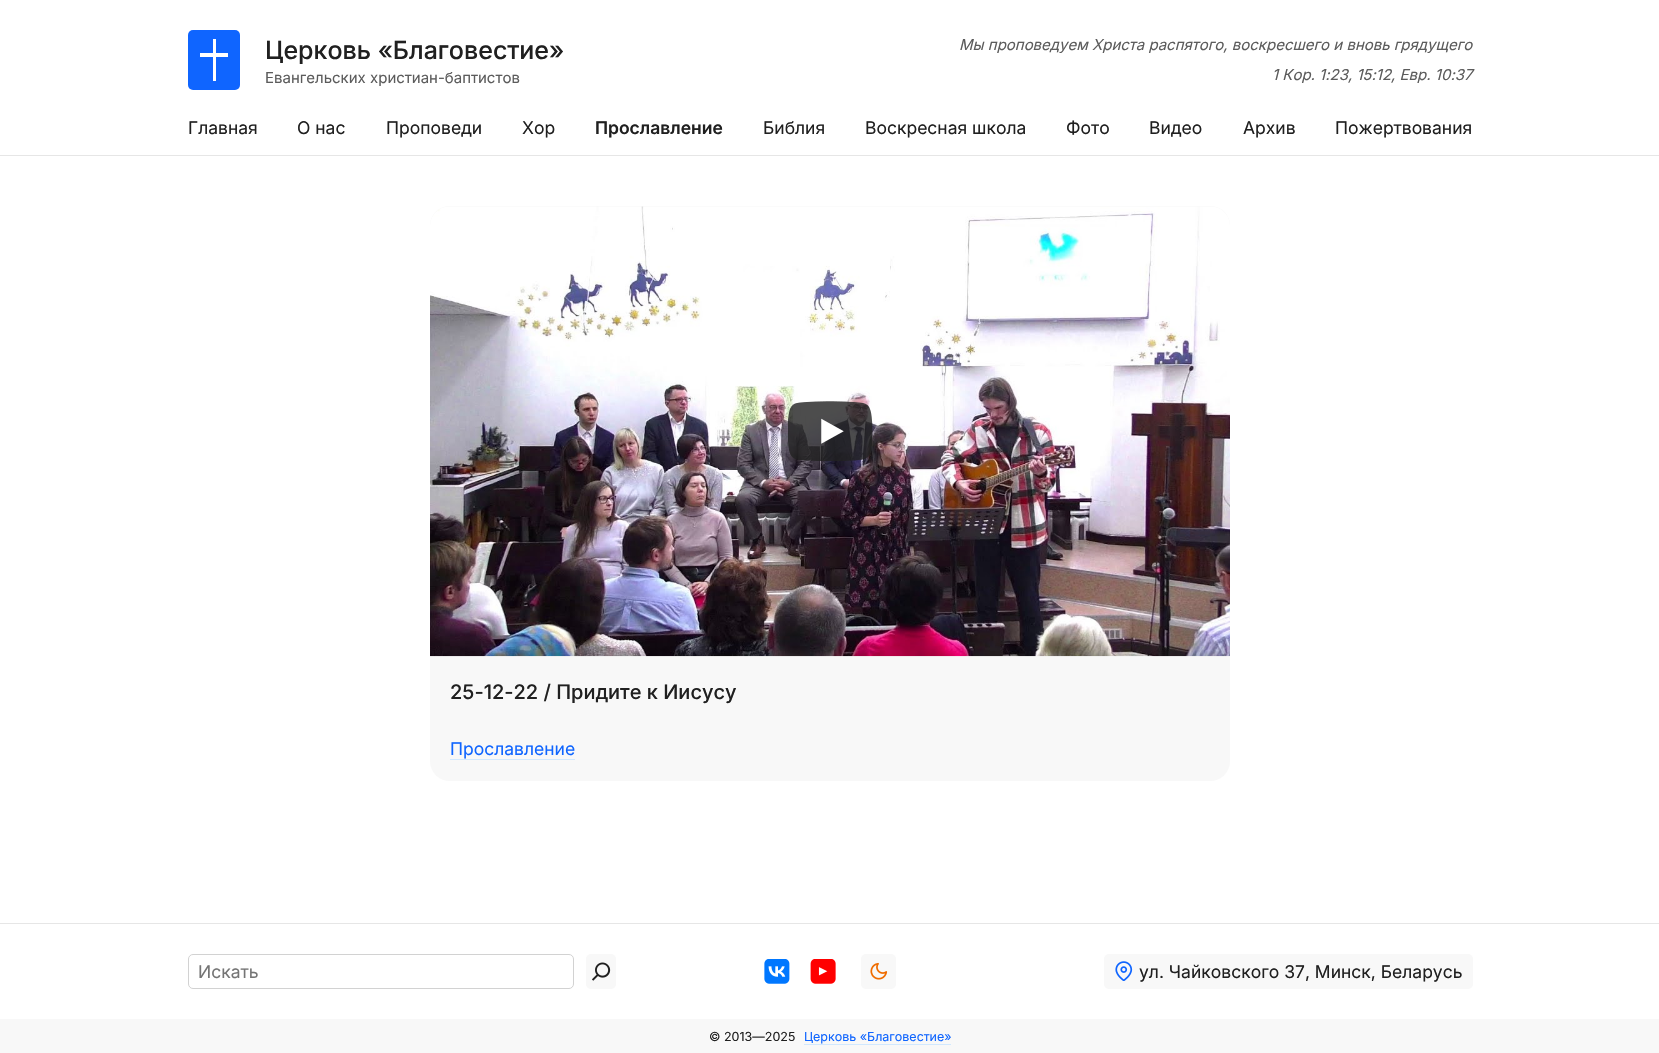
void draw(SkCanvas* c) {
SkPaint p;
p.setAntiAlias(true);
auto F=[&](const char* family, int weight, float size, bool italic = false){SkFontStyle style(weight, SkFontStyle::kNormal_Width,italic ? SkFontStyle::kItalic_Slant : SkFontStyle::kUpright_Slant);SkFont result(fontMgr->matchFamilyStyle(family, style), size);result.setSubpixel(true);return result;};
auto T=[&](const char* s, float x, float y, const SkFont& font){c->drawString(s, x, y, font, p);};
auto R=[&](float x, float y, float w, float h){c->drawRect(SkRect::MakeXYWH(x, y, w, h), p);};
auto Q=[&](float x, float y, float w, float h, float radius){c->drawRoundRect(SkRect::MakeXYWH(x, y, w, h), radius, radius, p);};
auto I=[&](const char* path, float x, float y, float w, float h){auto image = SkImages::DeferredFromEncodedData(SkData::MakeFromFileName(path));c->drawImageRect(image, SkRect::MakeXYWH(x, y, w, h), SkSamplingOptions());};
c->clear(0xffffffff);
p.setColor(0xffe6e6e6);
R(0,155,1659,1);
p.setColor(0xff0f65ff);
Q(188,30,52,60,5);
p.setColor(0xffffffff);
R(200,53,28,4);
R(213,39,3,42);
auto f1 = F("Inter",500,25);
p.setColor(0xff202020);
T("Церковь «Благовестие»",265,59,f1);
auto f2 = F("Inter",400,15);
p.setColor(0xff5c5c5c);
T("Евангельских христиан-баптистов",265,83,f2);
auto f3 = F("Inter",400,15,true);
T("Мы проповедуем Христа распятого, воскресшего и вновь грядущего",959,50,f3);
T("1 Кор. 1:23, 15:12, Евр. 10:37",1272,80,f3);
auto f4 = F("Inter",400,17.5);
p.setColor(0xff202020);
T("Главная",188,134,f4);
T("О нас",297,134,f4);
T("Проповеди",386,134,f4);
T("Хор",522,134,f4);
auto f5 = F("Inter",600,17.5);
T("Прославление",595,134,f5);
T("Библия",763,134,f4);
T("Воскресная школа",865,134,f4);
T("Фото",1066,134,f4);
T("Видео",1149,134,f4);
T("Архив",1243,134,f4);
T("Пожертвования",1335,134,f4);
p.setColor(0xfff8f8f8);
Q(430,206,800,575,20);
I("1.png",430,206,800,451);
I("2.png",788,401,85,60);
auto f6 = F("Inter",500,20);
p.setColor(0xff202020);
T("25-12-22 / Придите к Иисусу",450,699,f6);
p.setColor(0xff0f65ff);
T("Прославление",450,755,f4);
p.setColor(0xffd1e8fe);
R(450,759,125,1);
p.setColor(0xffe6e6e6);
R(0,923,1659,1);
p.setStroke(true);
p.setStrokeWidth(1);
p.setColor(0xffd2d2d2);
c->drawRoundRect(SkRect::MakeXYWH(188.5,954.5,385,34),4.5,4.5,p);
p.setStroke(false);
p.setColor(0xff757575);
T("Искать",198,978,f4);
p.setColor(0xfff8f8f8);
Q(586,954,30,35,5);
I("3.png",592,962,19,19);
I("4.png",764,959,26,25);
I("5.png",810,959,26,25);
Q(861,954,35,35,5);
I("6.png",870,962,18,18);
Q(1104,954,369,35,5);
I("7.png",1115,961,18,20);
p.setColor(0xff202020);
T("ул. Чайковского 37, Минск, Беларусь",1139,978,f4);
p.setColor(0xfff8f8f8);
R(0,1019,1659,34);
auto f7 = F("Inter",400,12.5);
p.setColor(0xff202020);
T("© 2013—2025",709,1041,f7);
p.setColor(0xff0f65ff);
T("Церковь «Благовестие»",804,1041,f7);
p.setColor(0xffd1e8fe);
R(804,1044,147,1);
}
